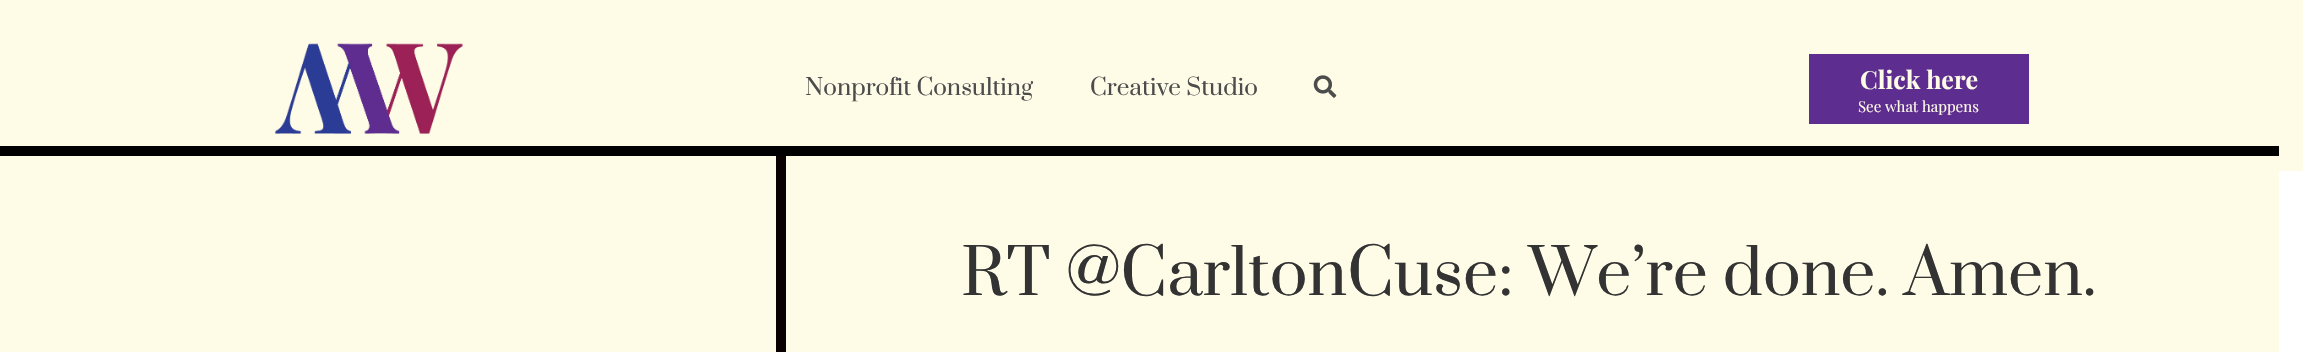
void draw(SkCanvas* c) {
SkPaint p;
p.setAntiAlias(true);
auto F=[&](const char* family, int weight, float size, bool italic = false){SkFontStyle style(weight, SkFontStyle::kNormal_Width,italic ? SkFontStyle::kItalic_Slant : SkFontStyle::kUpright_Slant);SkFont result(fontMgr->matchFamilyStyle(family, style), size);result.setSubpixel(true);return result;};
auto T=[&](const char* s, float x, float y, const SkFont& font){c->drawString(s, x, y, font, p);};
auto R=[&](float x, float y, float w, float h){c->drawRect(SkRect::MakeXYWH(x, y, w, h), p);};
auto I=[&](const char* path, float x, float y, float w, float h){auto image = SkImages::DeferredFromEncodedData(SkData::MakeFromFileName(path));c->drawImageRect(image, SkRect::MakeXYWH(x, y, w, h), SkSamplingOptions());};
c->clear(0xffffffff);
p.setColor(0xfffefce7);
R(0,0,2303,171);
I("1.png",275,43,188,91);
auto f1 = F("Prata",400,22.5);
p.setColor(0xff4c4c4c);
T("Nonprofit Consulting",805,95,f1);
T("Creative Studio",1090,95,f1);
I("2.png",1313,75,24,23);
p.setColor(0xff5e2d90);
R(1809,54,220,70);
auto f2 = F("Playfair Display",700,25);
p.setColor(0xfffefce7);
T("Click here",1860,89,f2);
auto f3 = F("Playfair Display",400,15);
T("See what happens",1858,112,f3);
R(0,171,2279,181);
p.setColor(0xff000000);
R(0,146,2279,10);
p.setColor(0xff0a0000);
R(776,156,10,196);
auto f4 = F("Prata",400,62.5);
p.setColor(0xff333333);
T("RT @CarltonCuse: We’re done. Amen.",961,295,f4);
}
